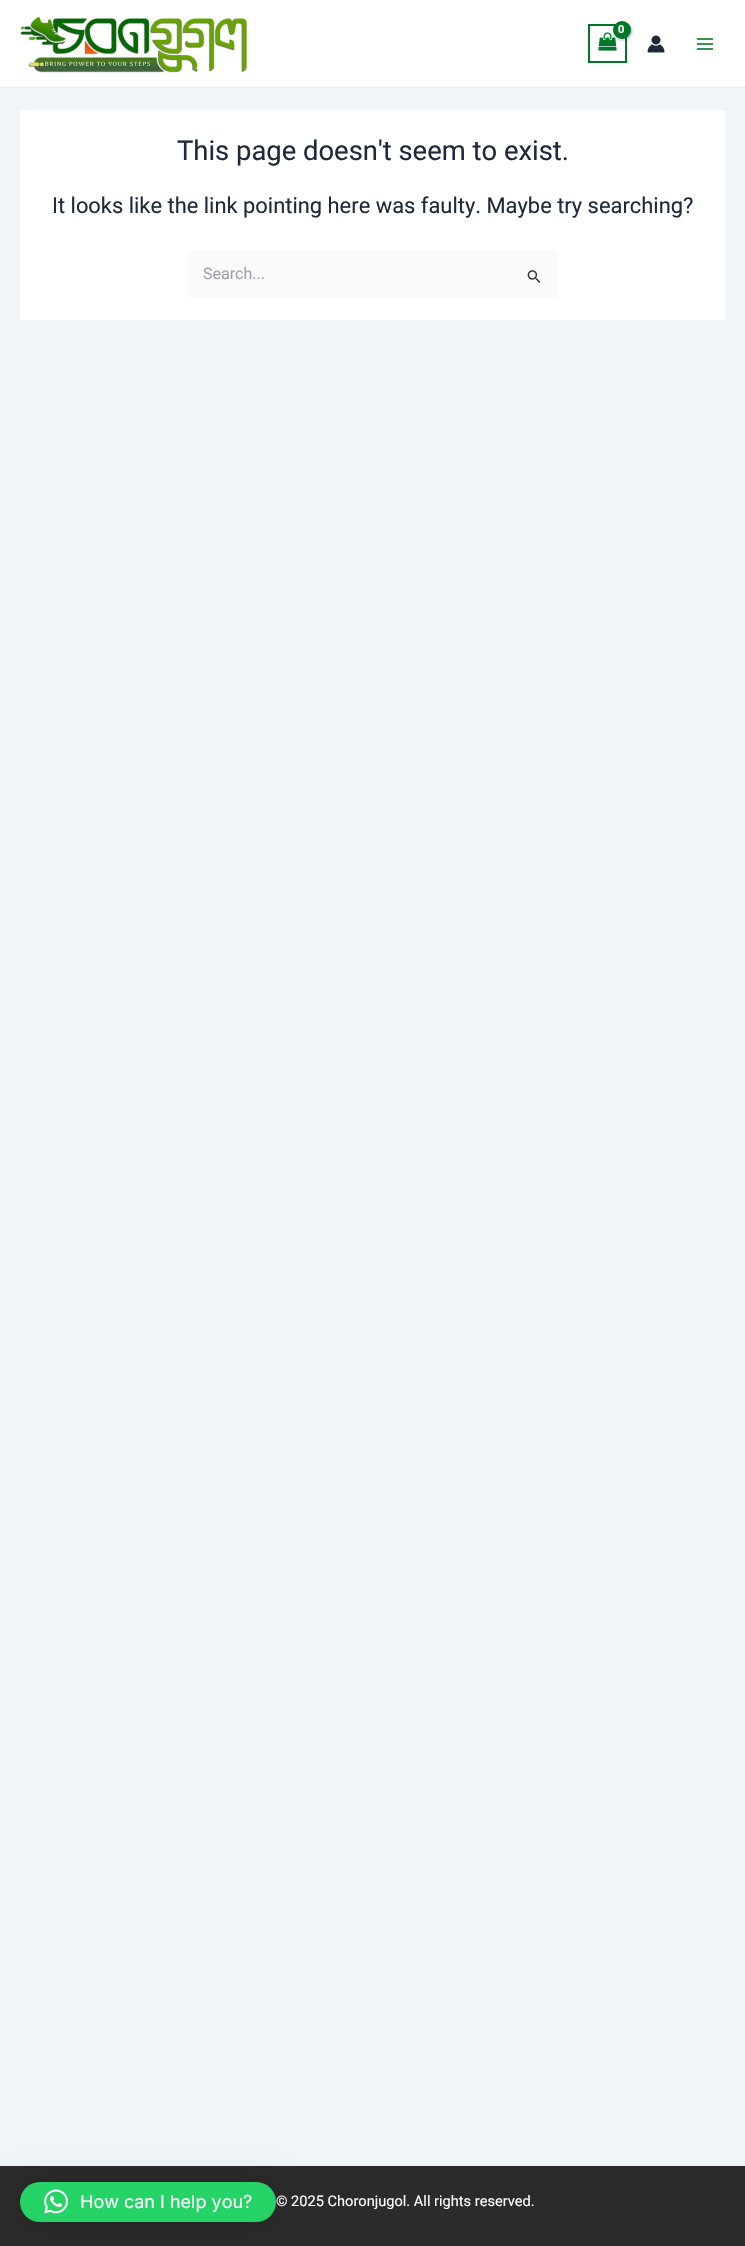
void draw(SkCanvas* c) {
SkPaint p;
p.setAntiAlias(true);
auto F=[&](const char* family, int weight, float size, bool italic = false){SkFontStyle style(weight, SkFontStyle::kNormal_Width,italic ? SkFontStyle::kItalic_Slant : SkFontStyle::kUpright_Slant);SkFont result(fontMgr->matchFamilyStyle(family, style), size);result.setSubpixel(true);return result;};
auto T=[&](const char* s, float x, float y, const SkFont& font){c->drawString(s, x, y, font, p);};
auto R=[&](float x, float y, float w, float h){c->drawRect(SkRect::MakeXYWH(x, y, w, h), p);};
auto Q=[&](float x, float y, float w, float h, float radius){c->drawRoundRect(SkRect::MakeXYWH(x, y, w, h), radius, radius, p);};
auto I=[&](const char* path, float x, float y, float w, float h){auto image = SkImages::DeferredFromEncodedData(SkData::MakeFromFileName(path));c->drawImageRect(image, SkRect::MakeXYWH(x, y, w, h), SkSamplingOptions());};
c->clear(0xfff0f5fa);
p.setColor(0xffffffff);
R(0,0,745,87);
p.setColor(0xffededed);
R(0,87,745,1);
I("1.png",20,16,227,57);
p.setStroke(true);
p.setStrokeWidth(2);
p.setColor(0xff027729);
c->drawRect(SkRect::MakeXYWH(589,25,37,37),p);
I("2.png",598,32,19,19);
p.setStroke(false);
p.setColor(0x4d000000);
p.setMaskFilter(SkMaskFilter::MakeBlur(kNormal_SkBlurStyle, 1.5));
c->drawRoundRect(SkRect::MakeXYWH(614,22,18,18),9,9,p);
p.setMaskFilter(nullptr);
p.setColor(0xff027729);
c->drawCircle(622,30,9,p);
auto f1 = F("Roboto",700,11);
p.setColor(0xffffffff);
T("0",618,33,f1);
I("3.png",647,35,18,18);
I("4.png",696,38,18,12);
R(20,110,705,210);
auto f2 = F("Roboto",400,27.4);
p.setColor(0xff1e293b);
T("This page doesn't seem to exist.",177,160,f2);
auto f3 = F("Roboto",400,21.9);
T("It looks like the link pointing here was faulty. Maybe try searching?",52,213,f3);
p.setColor(0xfffafafa);
Q(188,250,370,48,2);
auto f4 = F("Roboto",400,16);
p.setColor(0xff9ca3af);
T("Search...",203,279,f4);
I("5.png",527,270,14,13);
p.setColor(0xff2b2b2b);
R(0,2166,745,80);
auto f5 = F("Roboto",400,14.6);
p.setColor(0xffffffff);
T("© 2025 Choronjugol. All rights reserved.",276,2206,f5);
p.setColor(0x29000000);
p.setMaskFilter(SkMaskFilter::MakeBlur(kNormal_SkBlurStyle, 16));
c->drawRoundRect(SkRect::MakeXYWH(20,2184,256,40),20,20,p);
p.setMaskFilter(nullptr);
p.setColor(0xff25d366);
Q(20,2182,256,40,20);
I("6.png",44,2189,24,25);
auto f6 = F("Inter",400,18);
p.setColor(0xffffffff);
T("How can I help you?",80,2208,f6);
}
